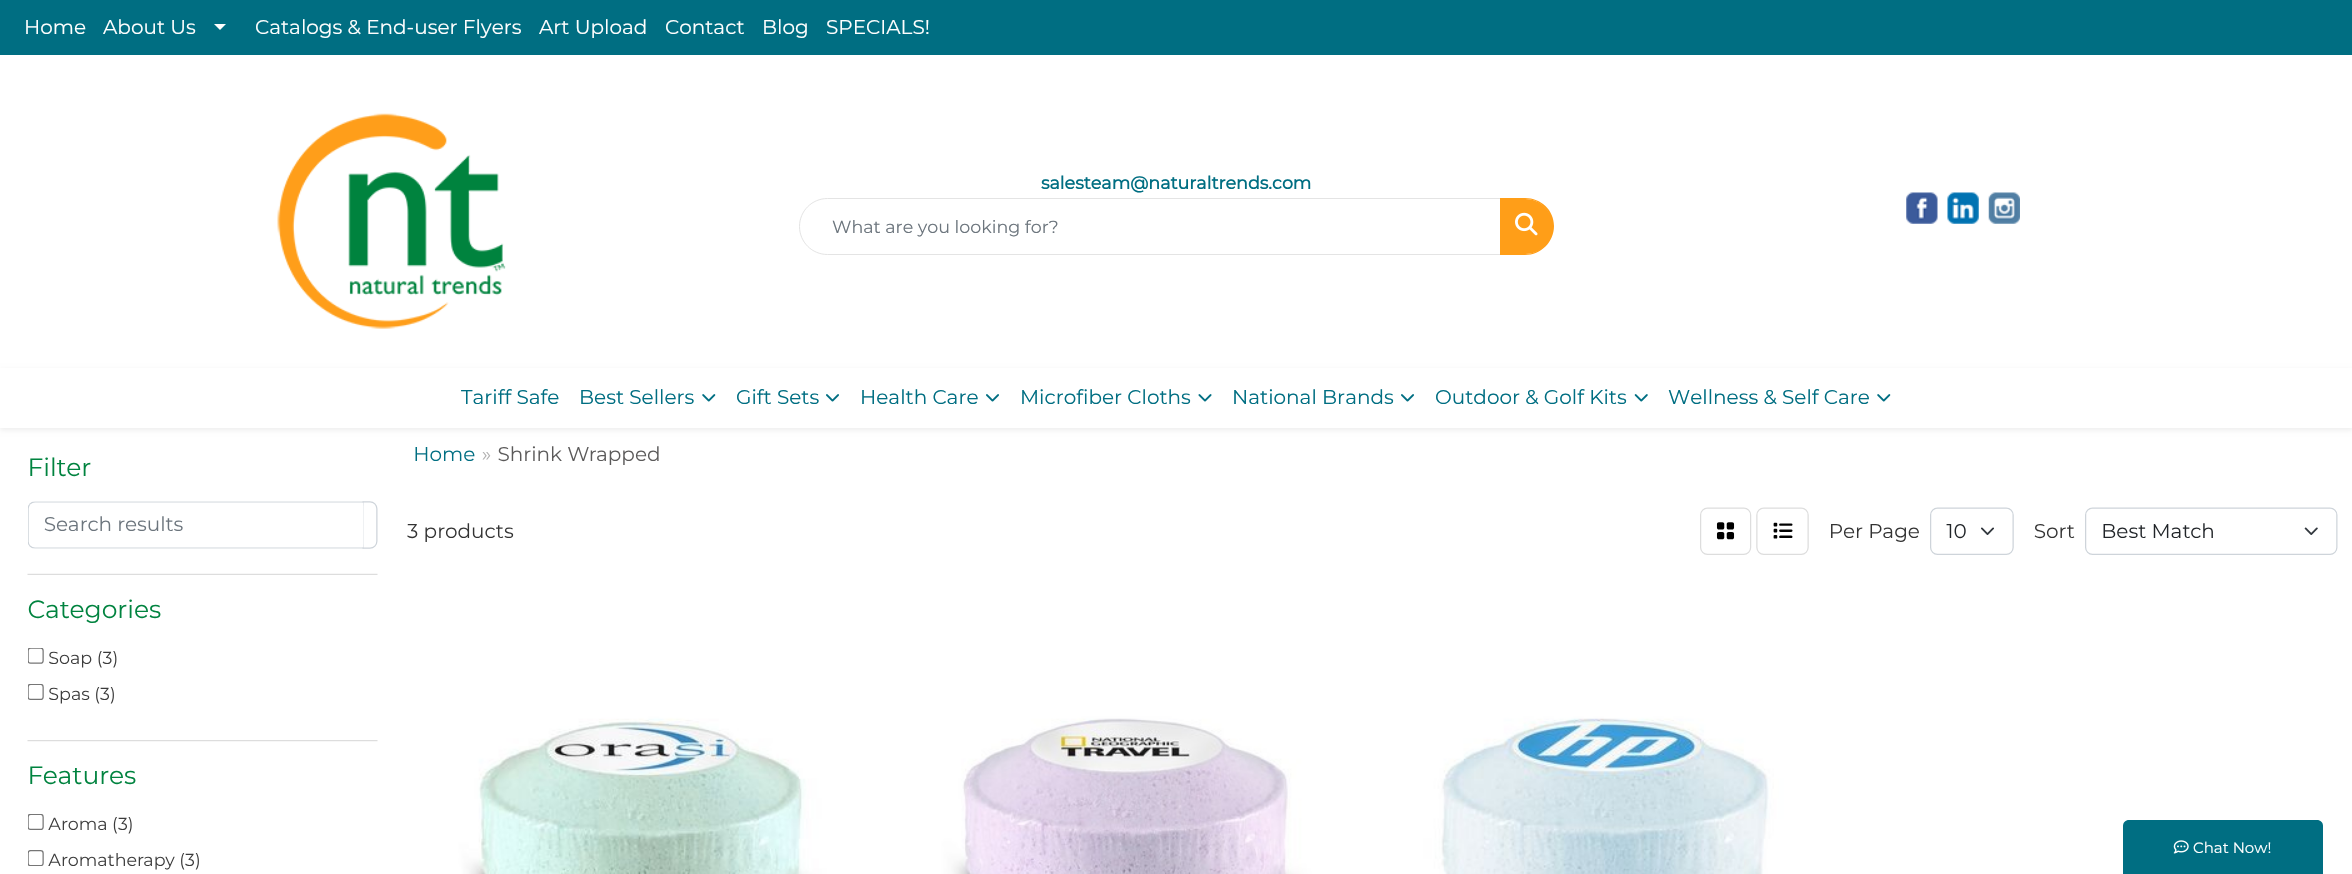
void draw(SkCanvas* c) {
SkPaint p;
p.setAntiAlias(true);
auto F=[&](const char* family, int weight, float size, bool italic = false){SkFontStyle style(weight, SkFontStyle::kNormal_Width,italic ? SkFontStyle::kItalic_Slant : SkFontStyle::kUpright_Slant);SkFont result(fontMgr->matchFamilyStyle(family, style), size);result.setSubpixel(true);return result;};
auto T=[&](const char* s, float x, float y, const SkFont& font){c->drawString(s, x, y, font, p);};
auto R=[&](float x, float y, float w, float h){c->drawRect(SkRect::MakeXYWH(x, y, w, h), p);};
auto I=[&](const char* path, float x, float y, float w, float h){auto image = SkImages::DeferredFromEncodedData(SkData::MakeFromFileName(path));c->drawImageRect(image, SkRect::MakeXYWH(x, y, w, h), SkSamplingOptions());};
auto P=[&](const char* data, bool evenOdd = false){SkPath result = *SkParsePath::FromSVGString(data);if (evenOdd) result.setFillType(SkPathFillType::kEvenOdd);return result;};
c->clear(0xffffffff);
p.setColor(0xff006e82);
R(0,0,2352,55);
auto f1 = F("Montserrat",100,20);
p.setColor(0xffffffff);
T("Home",24,34,f1);
T("About Us",103,34,f1);
c->drawPath(P("M214 24h12l-6 6z"),p);
T("Catalogs & End-user Flyers",255,34,f1);
T("Art Upload",539,34,f1);
T("Contact",665,34,f1);
T("Blog",762,34,f1);
T("SPECIALS!",826,34,f1);
I("1.png",277,113,229,216);
auto f2 = F("Montserrat",700,17.5);
p.setColor(0xff006e82);
T("salesteam@naturaltrends.com",1041,189,f2);
p.setStroke(true);
p.setStrokeWidth(1);
p.setColor(0xffe4e4e4);
c->drawPath(P("M827.5 198.5h673v56h-673c-15.5 0-28-12.5-28-28c0-15.5 12.5-28 28-28z"),p);
auto f3 = F("Montserrat",100,17.5);
p.setStroke(false);
p.setColor(0xff6c757d);
T("What are you looking for?",832,233,f3);
p.setColor(0xffff9e18);
c->drawPath(P("M1500 199h25.5c15 0 27.5 12.5 27.5 27.5c0 15-12.5 27.5-27.5 27.5h-25.5z"),p);
c->drawPath(P("M1500 198h25c16 0 29 12 29 28c0 16-13 29-29 29h-25zm0 1h25c15 0 27 12 27 27c0 15-12 28-27 28h-25z",true),p);
I("2.png",1515,212,23,24);
I("3.png",1906,192,32,32);
I("4.png",1947,192,32,32);
I("5.png",1988,192,32,32);
p.setColor(0x12000000);
p.setMaskFilter(SkMaskFilter::MakeBlur(kNormal_SkBlurStyle, 2.5));
c->drawRect(SkRect::MakeXYWH(0,370,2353,60),p);
p.setMaskFilter(nullptr);
p.setColor(0xffffffff);
R(0,368,2352,60);
p.setColor(0xff006e82);
T("Tariff Safe",461,404,f1);
T("Best Sellers",579,404,f1);
I("6.png",702,394,14,8);
T("Gift Sets",736,404,f1);
I("7.png",826,394,13,8);
T("Health Care",860,404,f1);
I("7.png",986,394,13,8);
T("Microfiber Cloths",1020,404,f1);
I("8.png",1198,394,14,8);
T("National Brands",1232,404,f1);
I("7.png",1401,394,13,8);
T("Outdoor & Golf Kits",1435,404,f1);
I("9.png",1634,394,14,8);
T("Wellness & Self Care",1668,404,f1);
I("6.png",1877,394,14,8);
I("10.png",27,446,2311,428);
c->drawPath(P("M2129 820h188c3.5 0 6 2.5 6 6v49h-200v-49c0-3.5 2.5-6 6-6z"),p);
I("11.png",2173,840,16,14);
auto f4 = F("Montserrat",100,15);
p.setColor(0xffffffff);
T("Chat Now!",2193,853,f4);
}
